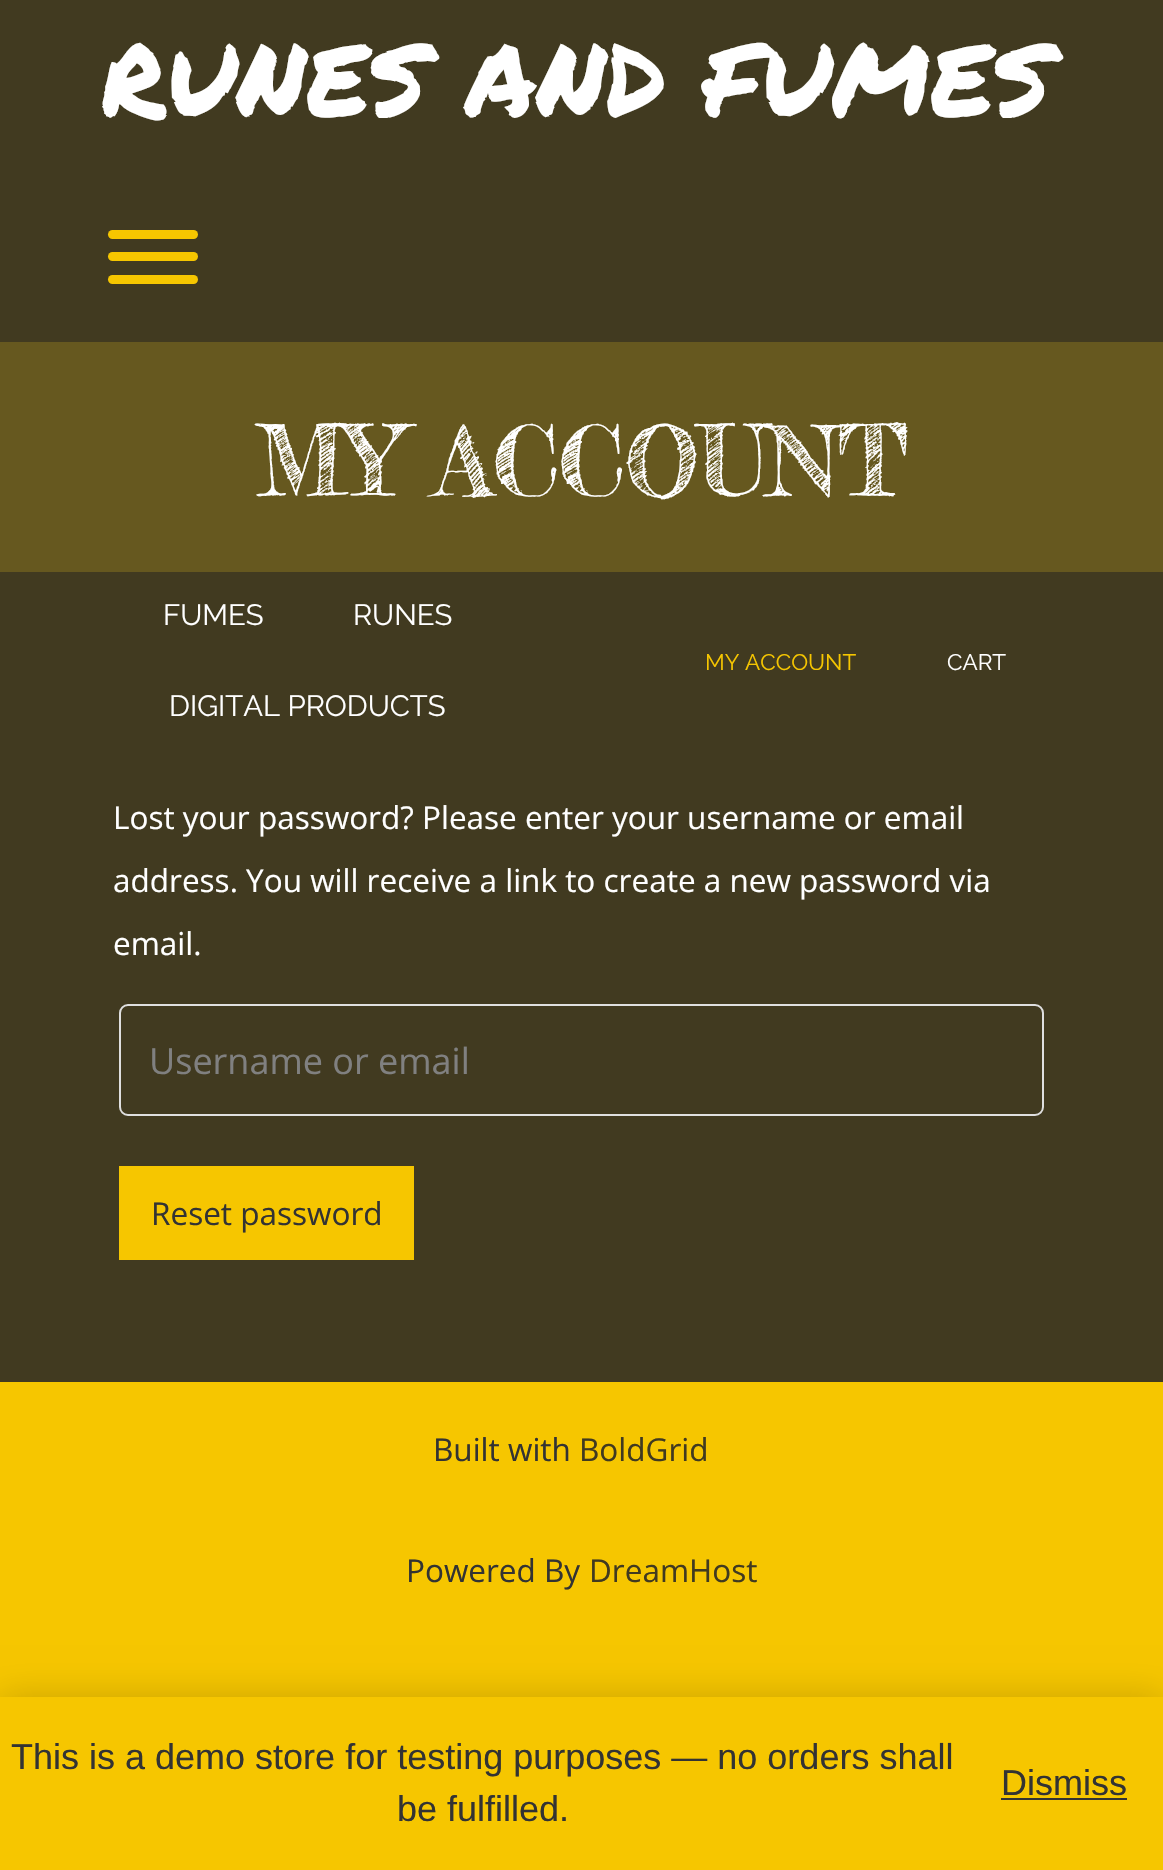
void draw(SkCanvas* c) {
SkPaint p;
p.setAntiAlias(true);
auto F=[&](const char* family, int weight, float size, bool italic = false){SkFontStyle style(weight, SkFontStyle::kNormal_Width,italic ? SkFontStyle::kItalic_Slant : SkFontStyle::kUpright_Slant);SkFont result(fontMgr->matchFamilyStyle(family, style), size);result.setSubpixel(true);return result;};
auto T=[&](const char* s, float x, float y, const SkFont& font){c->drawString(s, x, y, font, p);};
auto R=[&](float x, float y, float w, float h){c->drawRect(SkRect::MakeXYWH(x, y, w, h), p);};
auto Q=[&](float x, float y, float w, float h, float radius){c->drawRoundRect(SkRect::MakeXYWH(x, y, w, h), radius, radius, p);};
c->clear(0xff413a20);
auto f1 = F("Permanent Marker",400,101.25);
p.setColor(0xffffffff);
T("RUNES AND FUMES",101,117,f1);
p.setColor(0xfff6c600);
Q(108,275,90,9,4.5);
Q(108,230,90,9,4.5);
Q(108,252,90,9,4.5);
p.setColor(0xff66581f);
R(0,342,1163,230);
auto f2 = F("Fredericka the Great",400,96.75);
p.setColor(0xffffffff);
T("MY ACCOUNT",256,496,f2);
auto f3 = F("Raleway",400,29.25);
T("FUMES",163,625,f3);
T("RUNES",353,625,f3);
T("DIGITAL PRODUCTS",169,716,f3);
auto f4 = F("Raleway",400,22.5);
p.setColor(0xfff6c600);
T("MY ACCOUNT",705,670,f4);
p.setColor(0xffffffff);
T("CART",947,670,f4);
auto f5 = F("Open Sans",400,31.5);
T("Lost your password? Please enter your username or email",113,829,f5);
T("address. You will receive a link to create a new password via",113,892,f5);
T("email.",113,955,f5);
p.setStroke(true);
p.setStrokeWidth(2);
p.setColor(0xffdfdfdf);
c->drawRoundRect(SkRect::MakeXYWH(120,1005,923,110),8,8,p);
auto f6 = F("Open Sans",400,36);
p.setStroke(false);
p.setColor(0xff808080);
T("Username or email",149,1074,f6);
p.setColor(0xfff6c600);
R(119,1166,295,94);
p.setColor(0xff333333);
T("Reset password",151,1225,f5);
p.setColor(0xfff6c600);
R(0,1382,1163,315);
p.setColor(0xff333333);
T("Built with",433,1461,f5);
p.setColor(0xff413a20);
T("BoldGrid",579,1461,f5);
p.setColor(0xff333333);
T("Powered By",406,1582,f5);
p.setColor(0xff413a20);
T("DreamHost",589,1582,f5);
p.setColor(0x33000000);
p.setMaskFilter(SkMaskFilter::MakeBlur(kNormal_SkBlurStyle, 18));
c->drawRect(SkRect::MakeXYWH(0,1699,1163,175),p);
p.setMaskFilter(nullptr);
p.setColor(0xfff6c600);
R(0,1697,1163,173);
auto f7 = F("Liberation Sans",400,36);
p.setColor(0xff333333);
T("This is a demo store for testing purposes — no orders shall",11,1769,f7);
T("Dismiss",1001,1795,f7);
R(1001,1798,126,2);
T("be fulfilled.",397,1821,f7);
}
